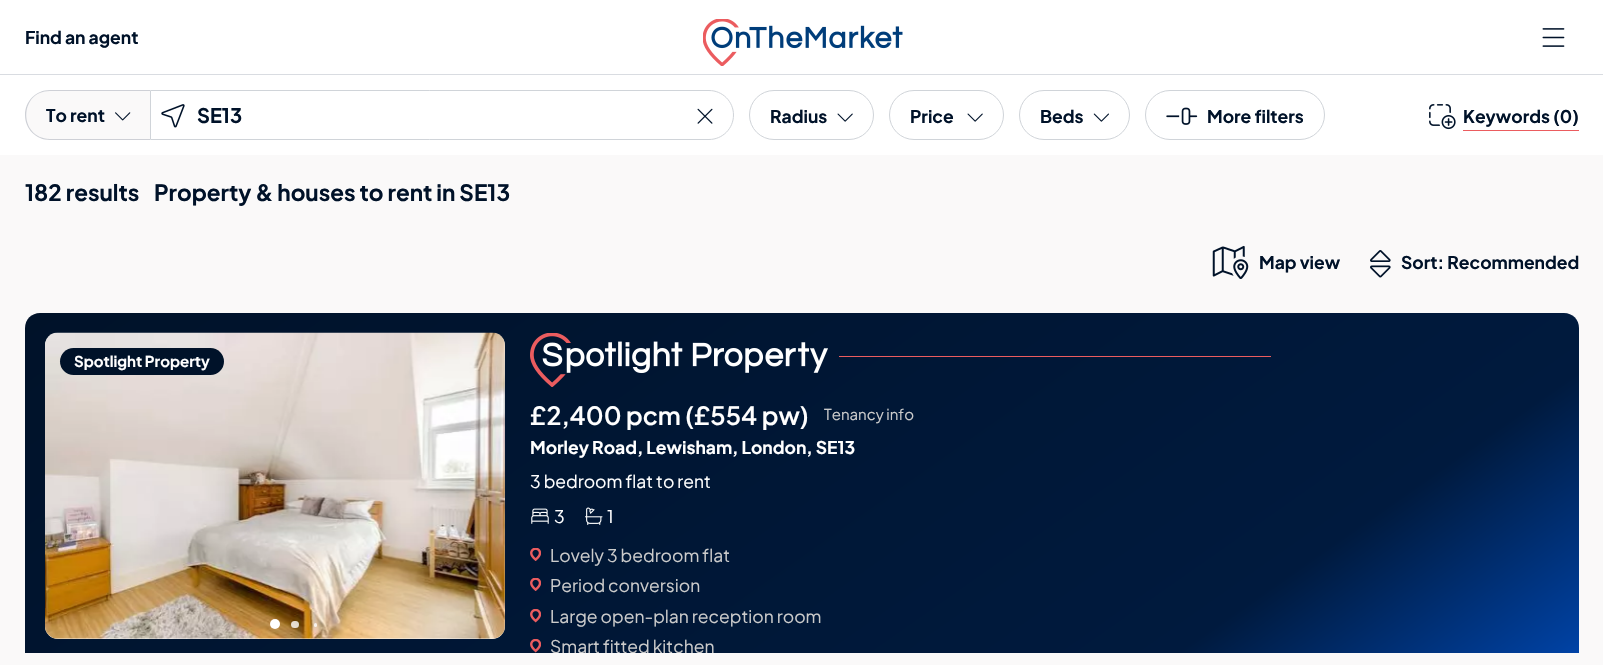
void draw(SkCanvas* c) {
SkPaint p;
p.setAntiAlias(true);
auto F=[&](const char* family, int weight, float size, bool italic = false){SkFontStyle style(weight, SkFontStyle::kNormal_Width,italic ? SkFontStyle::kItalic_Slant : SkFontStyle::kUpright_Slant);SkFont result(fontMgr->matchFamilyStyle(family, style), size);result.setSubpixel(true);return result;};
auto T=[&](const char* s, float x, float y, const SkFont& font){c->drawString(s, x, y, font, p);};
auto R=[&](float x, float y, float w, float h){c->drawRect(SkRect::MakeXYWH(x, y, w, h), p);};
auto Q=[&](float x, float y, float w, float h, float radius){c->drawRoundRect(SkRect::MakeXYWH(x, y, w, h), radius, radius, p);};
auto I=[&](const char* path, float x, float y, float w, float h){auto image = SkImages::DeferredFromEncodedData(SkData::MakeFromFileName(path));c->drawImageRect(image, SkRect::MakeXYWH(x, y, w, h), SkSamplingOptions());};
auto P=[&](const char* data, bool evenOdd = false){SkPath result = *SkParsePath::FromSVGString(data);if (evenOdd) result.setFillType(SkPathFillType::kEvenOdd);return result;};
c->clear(0xffffffff);
p.setColor(0xffd9dce1);
R(0,74,1603,1);
auto f1 = F("Plus Jakarta Sans",700,17.5);
p.setColor(0xff001229);
T("Find an agent",25,44,f1);
I("1.png",703,19,200,47);
I("2.png",1542,28,23,19);
p.setColor(0xfffaf9f9);
R(0,155,1603,510);
c->drawPath(P("M50 90h100v50h-100c-14 0-25-11-25-25c0-14 11-25 25-25z"),p);
p.setColor(0x80a1a8b3);
c->drawPath(P("M50 90h100v50h-100c-14 0-25-11-25-25c0-14 11-25 25-25zm0 1h100v48h-100c-32-1-31-48 0-48z",true),p);
p.setColor(0xff001229);
T("To rent",46,122,f1);
I("3.png",115,112,16,9);
p.setStroke(true);
p.setStrokeWidth(1);
p.setColor(0xffd0d4d9);
c->drawPath(P("M150.5 90.5h558.5c13.5 0 24.5 11 24.5 24.5c0 13.5-11 24.5-24.5 24.5h-558.5z"),p);
I("4.png",161,104,24,24);
auto f2 = F("Plus Jakarta Sans",700,20);
p.setStroke(false);
p.setColor(0xff001229);
T("SE13",197,123,f2);
I("5.png",697,108,16,16);
p.setStroke(true);
p.setColor(0xffd0d4d9);
c->drawRoundRect(SkRect::MakeXYWH(749.5,90.5,124,49),24.5,24.5,p);
p.setStroke(false);
p.setColor(0xff001229);
T("Radius",770,123,f1);
I("6.png",837,113,16,9);
p.setStroke(true);
p.setColor(0xffd0d4d9);
c->drawRoundRect(SkRect::MakeXYWH(889.5,90.5,114,49),24.5,24.5,p);
p.setStroke(false);
p.setColor(0xff001229);
T("Price",910,123,f1);
I("6.png",967,113,16,9);
p.setStroke(true);
p.setColor(0xffd0d4d9);
c->drawRoundRect(SkRect::MakeXYWH(1019.5,90.5,110,49),24.5,24.5,p);
p.setStroke(false);
p.setColor(0xff001229);
T("Beds",1040,123,f1);
I("7.png",1093,113,16,9);
p.setStroke(true);
p.setColor(0xffd0d4d9);
c->drawRoundRect(SkRect::MakeXYWH(1145.5,90.5,179,49),24.5,24.5,p);
I("8.png",1166,107,32,18);
p.setStroke(false);
p.setColor(0xff001229);
T("More filters",1207,123,f1);
I("9.png",1429,104,27,26);
T("Keywords (0)",1463,123,f1);
p.setColor(0xffeb5c5f);
R(1463,130,116,1);
auto f3 = F("Plus Jakarta Sans",700,22.5);
p.setColor(0xff001229);
T("182 results",25,201,f3);
T("Property & houses to rent in SE13",154,201,f3);
I("10.png",1212,245,37,34);
T("Map view",1259,269,f1);
I("11.png",1370,250,21,28);
T("Sort: Recommended",1401,269,f1);
{
const SkColor colors[] = {0xff001229,0xff001a3e,0xff00409f,0xff0055d4,0xff8adff2};
const float stops[] = {0,.65,.8,.86,1};
const SkPoint ends[] = {{407,45}, {1236,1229}};
p.setShader(SkGradientShader::MakeLinear(ends, colors, stops, 5, SkTileMode::kClamp));
p.setAlpha(255);
}
c->drawPath(P("M40 313h1524c8.5 0 15 6.5 15 15v325h-1554v-325c0-8.5 6.5-15 15-15z"),p);
p.setShader(nullptr);
p.setColor(0xffffffff);
Q(45,333,460,306,13);
I("12.png",45,332,460,307);
c->drawCircle(275,624,5,p);
p.setColor(0xccffffff);
Q(291,621,8,7,3.5);
Q(314,623,3,4,1.5);
p.setColor(0xff001229);
Q(60,348,164,27,13.5);
auto f4 = F("Plus Jakarta Sans",700,15);
p.setColor(0xffffffff);
T("Spotlight Property",74,367,f4);
I("13.png",530,333,298,54);
p.setColor(0xffeb5c5f);
R(839,356,432,1);
auto f5 = F("Plus Jakarta Sans",600,25);
p.setColor(0xffffffff);
T("£2,400 pcm (£554 pw)",530,425,f5);
auto f6 = F("Plus Jakarta Sans",400,15);
p.setColor(0xffcbcbcb);
T("Tenancy info",824,420,f6);
p.setColor(0xffffffff);
T("Morley Road, Lewisham, London, SE13",530,454,f1);
auto f7 = F("Plus Jakarta Sans",400,17.5);
T("3 bedroom flat to rent",530,488,f7);
I("14.png",531,508,18,16);
T("3",554,523,f7);
I("15.png",585,507,18,18);
T("1",607,523,f7);
I("16.png",530,548,11,13);
p.setColor(0xffcbcbcb);
T("Lovely 3 bedroom flat",550,562,f7);
I("17.png",530,578,11,13);
T("Period conversion",550,592,f7);
I("18.png",530,609,11,14);
T("Large open-plan reception room",550,623,f7);
I("19.png",530,639,11,14);
c->save();
c->clipRect(SkRect::MakeXYWH(530,539,741,114));
T("Smart fitted kitchen",550,653,f7);
c->restore();
}
